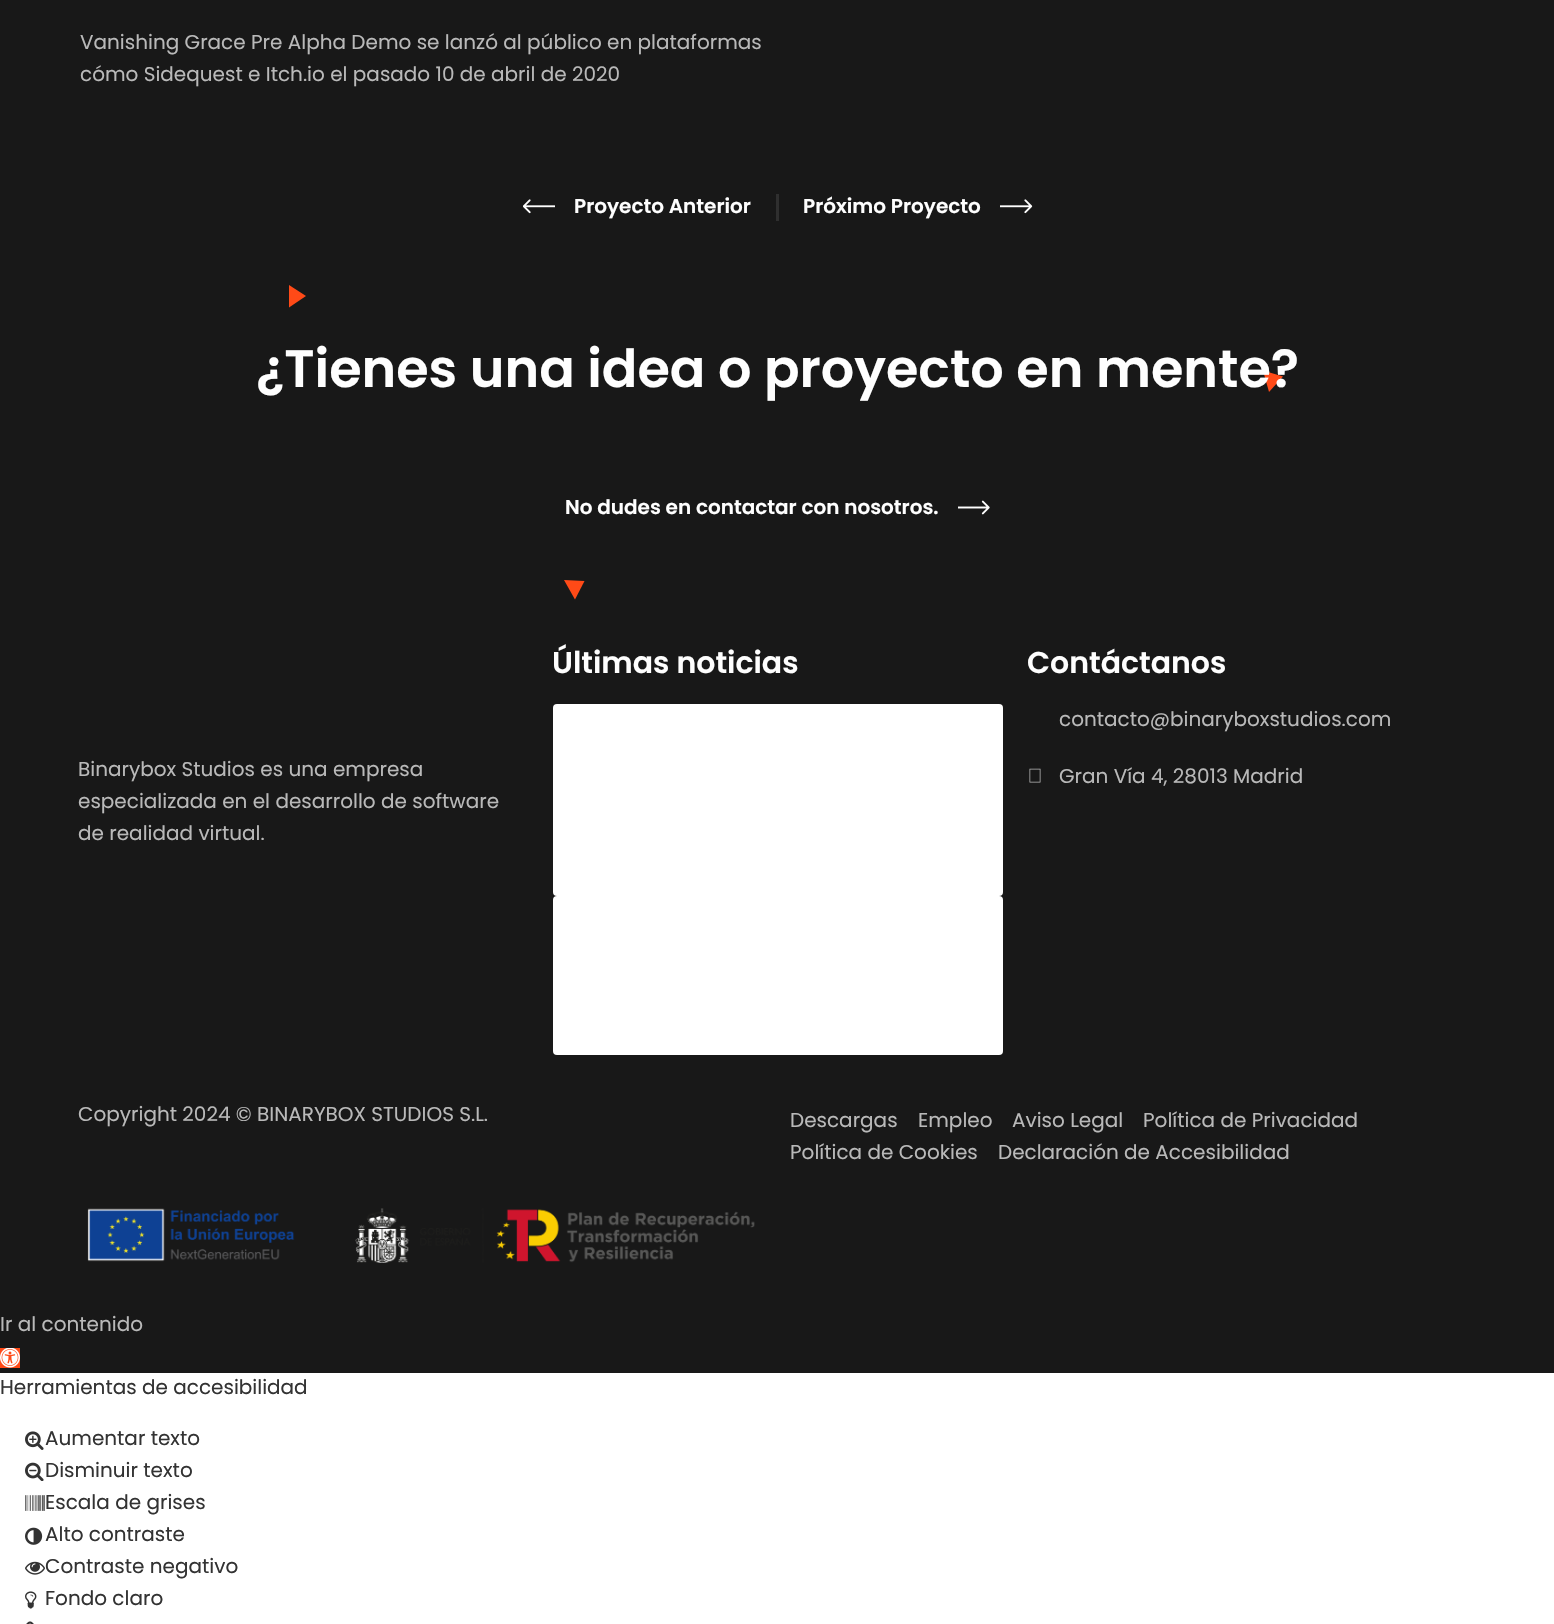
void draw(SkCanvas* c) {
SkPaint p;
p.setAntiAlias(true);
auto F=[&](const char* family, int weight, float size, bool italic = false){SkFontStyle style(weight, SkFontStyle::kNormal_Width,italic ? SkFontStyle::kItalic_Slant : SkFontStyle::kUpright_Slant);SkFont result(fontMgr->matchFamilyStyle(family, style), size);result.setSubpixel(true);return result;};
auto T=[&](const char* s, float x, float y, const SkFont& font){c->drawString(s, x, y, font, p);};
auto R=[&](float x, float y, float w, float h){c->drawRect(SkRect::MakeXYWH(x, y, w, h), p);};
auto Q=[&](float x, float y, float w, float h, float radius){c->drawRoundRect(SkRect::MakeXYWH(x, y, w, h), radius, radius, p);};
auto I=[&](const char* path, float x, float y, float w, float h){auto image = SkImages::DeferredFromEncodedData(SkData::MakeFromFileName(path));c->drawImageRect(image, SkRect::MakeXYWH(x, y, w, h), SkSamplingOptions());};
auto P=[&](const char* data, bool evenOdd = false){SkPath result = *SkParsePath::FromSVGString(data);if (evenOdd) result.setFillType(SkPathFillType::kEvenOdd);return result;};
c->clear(0xff181818);
auto f1 = F("Poppins",400,20);
p.setColor(0xffb9b9b9);
T("Vanishing Grace Pre Alpha Demo se lanzó al público en plataformas",80,49,f1);
T("cómo Sidequest e Itch.io el pasado 10 de abril de 2020",80,81,f1);
I("1.png",523,199,32,15);
auto f2 = F("Poppins",600,20);
p.setColor(0xfffefefe);
T("Proyecto Anterior",574,213,f2);
p.setColor(0xff2f2f2f);
R(776,194,3,27);
p.setColor(0xfffefefe);
T("Próximo Proyecto",803,213,f2);
I("2.png",1000,199,33,15);
p.setColor(0xffff4a17);
c->drawPath(P("M289 307.5v-22.5l17 11z"),p);
c->drawPath(P("M1269 392l-6-21.5l20 6z"),p);
auto f3 = F("Poppins",600,52.5);
p.setColor(0xfffefefe);
T("¿Tienes una idea o proyecto en mente?",256,387,f3);
T("No dudes en contactar con nosotros.",565,514,f2);
I("3.png",958,500,32,15);
p.setColor(0xffff4a17);
c->drawPath(P("M575 599.5l-11-19.5l20.5 1z"),p);
auto f4 = F("Poppins",600,30);
p.setColor(0xfffefefe);
T("Últimas noticias",552,673,f4);
p.setColor(0xffffffff);
Q(553,704,450,192,4);
Q(553,896,450,159,4);
p.setColor(0xfffefefe);
T("Contáctanos",1027,673,f4);
p.setColor(0xffb9b9b9);
T("contacto@binaryboxstudios.com",1059,726,f1);
I("4.png",1029,768,12,15);
T("Gran Vía 4, 28013 Madrid",1059,783,f1);
T("Binarybox Studios es una empresa",78,776,f1);
T("especializada en el desarrollo de software",78,808,f1);
T("de realidad virtual.",78,840,f1);
T("Copyright 2024 © BINARYBOX STUDIOS S.L.",78,1121,f1);
T("Descargas",790,1127,f1);
T("Empleo",918,1127,f1);
T("Aviso Legal",1012,1127,f1);
T("Política de Privacidad",1143,1127,f1);
T("Política de Cookies",790,1159,f1);
T("Declaración de Accesibilidad",998,1159,f1);
I("5.png",87,1208,668,55);
T("Ir al contenido",0,1331,f1);
p.setColor(0xffff4a17);
R(0,1348,20,20);
I("6.png",0,1348,20,20);
p.setColor(0xffffffff);
R(0,1373,1554,251);
p.setColor(0xff333333);
T("Herramientas de accesibilidad",0,1394,f1);
I("7.png",25,1431,19,19);
T("Aumentar texto",45,1445,f1);
I("8.png",25,1462,19,19);
T("Disminuir texto",45,1477,f1);
I("9.png",25,1495,20,16);
T("Escala de grises",45,1509,f1);
I("10.png",25,1527,18,18);
T("Alto contraste",45,1541,f1);
I("11.png",25,1561,20,14);
T("Contraste negativo",45,1573,f1);
I("12.png",25,1591,12,18);
T("Fondo claro",45,1605,f1);
I("13.png",26,1621,8,3);
}
